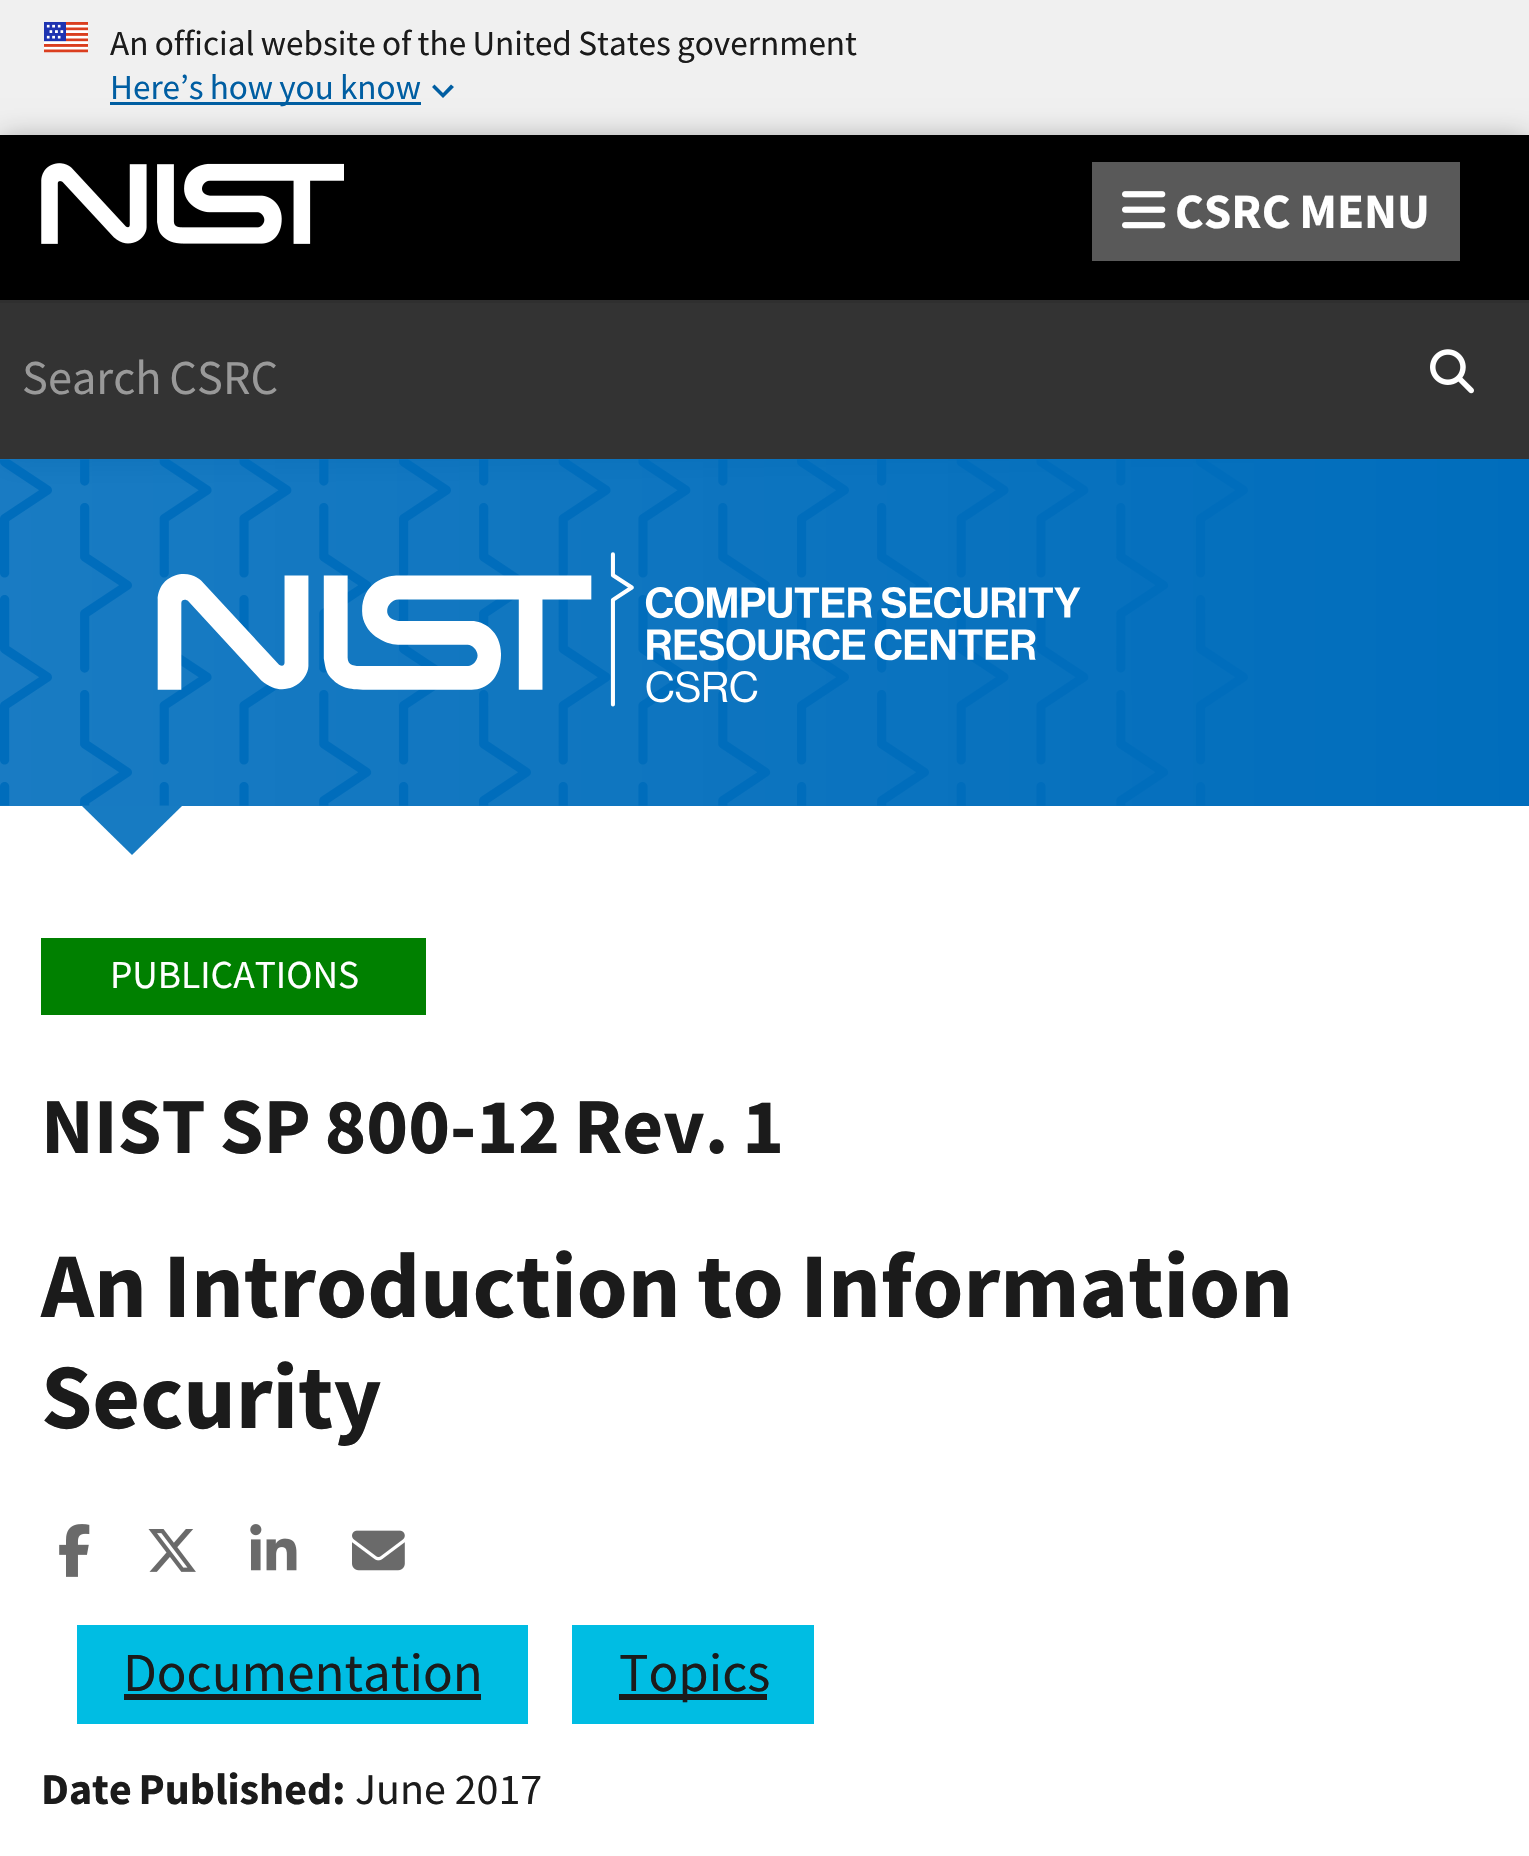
void draw(SkCanvas* c) {
SkPaint p;
p.setAntiAlias(true);
auto F=[&](const char* family, int weight, float size, bool italic = false){SkFontStyle style(weight, SkFontStyle::kNormal_Width,italic ? SkFontStyle::kItalic_Slant : SkFontStyle::kUpright_Slant);SkFont result(fontMgr->matchFamilyStyle(family, style), size);result.setSubpixel(true);return result;};
auto T=[&](const char* s, float x, float y, const SkFont& font){c->drawString(s, x, y, font, p);};
auto L=[&](const char* s, float x, float y, const SkFont& font, const SkPaint& ink, float letter, float word){std::vector<SkGlyphID> glyphs(font.countText(s, strlen(s), SkTextEncoding::kUTF8));std::vector<float> xs(glyphs.size());font.textToGlyphs(s, strlen(s), SkTextEncoding::kUTF8, glyphs);font.getXPos(glyphs, xs, x);float extra = 0;for (size_t i = 0; i < glyphs.size(); i++) {xs[i] += extra;extra += letter + word * (glyphs[i] == font.unicharToGlyph(' '));}c->drawTextBlob(SkTextBlob::MakeFromPosHGlyphs(glyphs, xs, y, font), 0, 0, ink);};
auto R=[&](float x, float y, float w, float h){c->drawRect(SkRect::MakeXYWH(x, y, w, h), p);};
auto I=[&](const char* path, float x, float y, float w, float h){auto image = SkImages::DeferredFromEncodedData(SkData::MakeFromFileName(path));c->drawImageRect(image, SkRect::MakeXYWH(x, y, w, h), SkSamplingOptions());};
auto P=[&](const char* data, bool evenOdd = false){SkPath result = *SkParsePath::FromSVGString(data);if (evenOdd) result.setFillType(SkPathFillType::kEvenOdd);return result;};
c->clear(0xffffffff);
p.setColor(0xfff0f0f0);
R(0,0,1529,135);
I("1.png",44,22,44,31);
auto f1 = F("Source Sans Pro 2",400,35.2);
p.setColor(0xff1b1b1b);
L("An official website of the United States government",110,55,f1,p,0,-.75);
p.setColor(0xff005ea2);
R(110,102,311,3);
L("Here’s how you know",110,99,f1,p,0,-1);
c->drawPath(P("M451 84.5l-8 8.5l-8.5-8.5l-2.5 2.5l11 11l11-11z"),p);
p.setColor(0x5c000000);
p.setMaskFilter(SkMaskFilter::MakeBlur(kNormal_SkBlurStyle, 14));
c->drawRect(SkRect::MakeXYWH(0,140,1529,325),p);
p.setMaskFilter(nullptr);
p.setColor(0xff000000);
R(0,135,1529,165);
I("2.png",41,163,303,81);
p.setColor(0xff595959);
R(1092,162,368,99);
I("3.png",1122,191,44,38);
auto f2 = F("Source Sans Pro",700,49.5);
p.setColor(0xffffffff);
L("CSRC MENU",1175,228,f2,p,0,-1);
p.setColor(0xff333333);
R(0,303,1529,156);
p.setColor(0xff2f2f2f);
R(0,300,1529,3);
auto f3 = F("Source Sans Pro",400,48.5);
p.setColor(0xff999999);
L("Search CSRC",22,394,f3,p,0,-2);
I("4.png",1430,349,44,45);
{
const SkColor colors[] = {0xe6006dbc,0xff006dbc};
const float stops[] = {0,1};
const SkPoint ends[] = {{0,633}, {1529,632}};
p.setShader(SkGradientShader::MakeLinear(ends, colors, stops, 2, SkTileMode::kClamp));
p.setAlpha(255);
}
R(0,459,1529,347);
I("5.png",0,459,1248,347);
I("6.png",157,552,924,155);
p.setShader(nullptr);
p.setColor(0xff177bc2);
c->drawPath(P("M82 806h100l-50 49z"),p);
p.setColor(0xff008000);
R(41,938,385,77);
auto f4 = F("Source Sans Pro",400,39.5);
p.setColor(0xffffffff);
T("PUBLICATIONS",110,988,f4);
auto f5 = F("Source Sans Pro",700,79.25);
p.setColor(0xff1b1b1b);
L("NIST SP 800-12 Rev. 1",41,1153,f5,p,0,-2);
auto f6 = F("Source Sans Pro",700,92.4);
L("An Introduction to Information",41,1317,f6,p,0,-2);
T("Security",41,1428,f6);
I("7.png",59,1524,31,53);
I("8.png",148,1529,48,43);
I("9.png",250,1524,47,47);
I("10.png",352,1530,53,41);
p.setColor(0xff00bde3);
R(77,1625,451,99);
auto f7 = F("Source Sans Pro",400,55);
p.setColor(0xff1b1b1b);
T("Documentation",123,1691,f7);
R(124,1694,357,6);
p.setColor(0xff00bde3);
R(572,1625,242,99);
p.setColor(0xff1b1b1b);
R(619,1694,148,6);
T("Topics",619,1691,f7);
auto f8 = F("Source Sans Pro",700,44);
L("Date Published:",41,1804,f8,p,0,-2);
auto f9 = F("Source Sans Pro",400,44);
T("June 2017",355,1804,f9);
}
